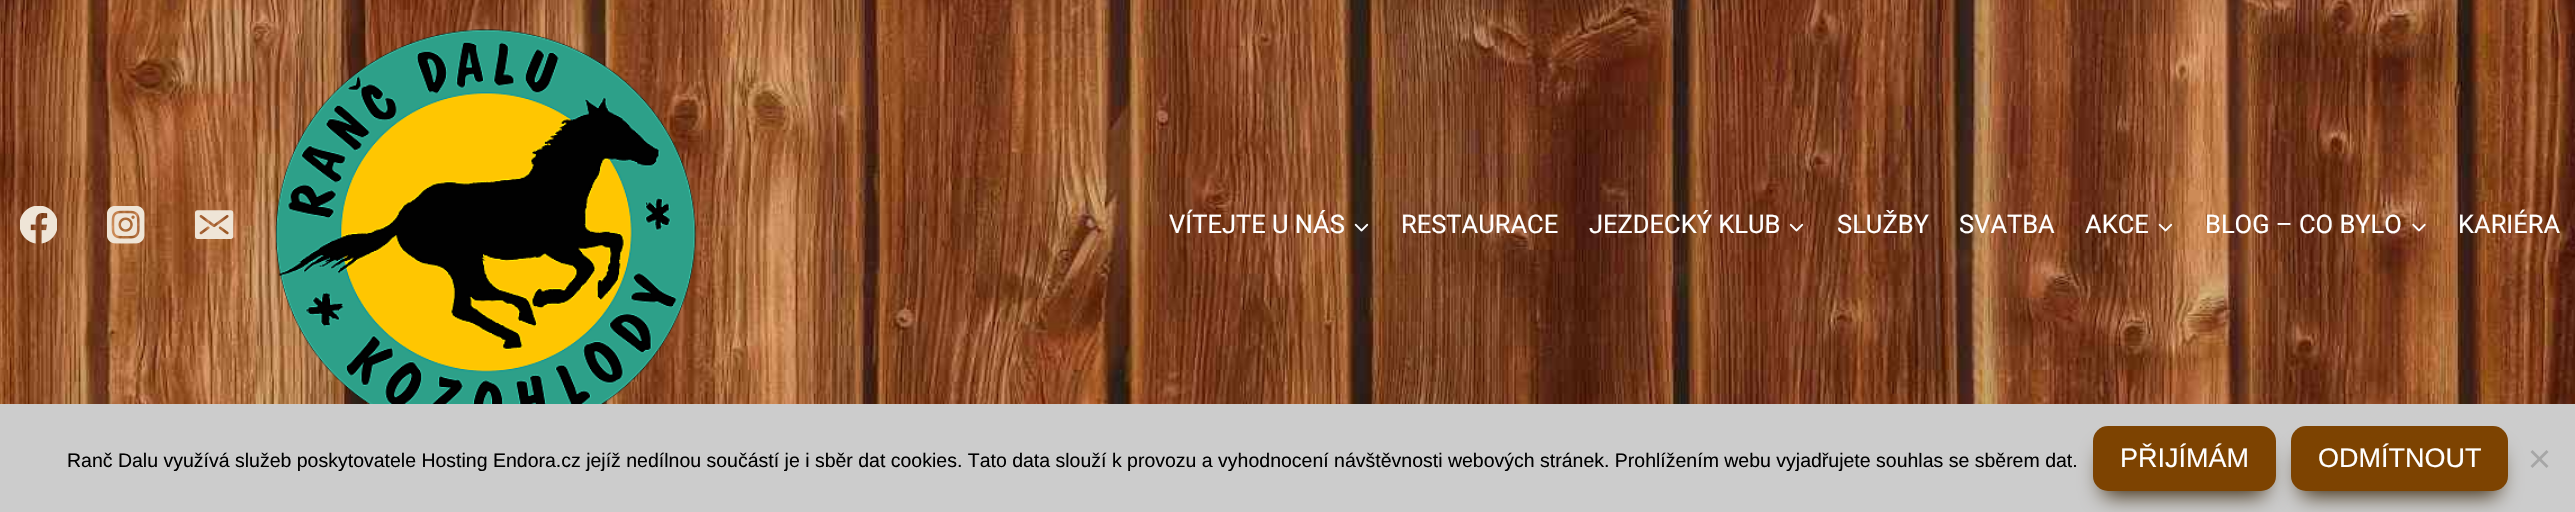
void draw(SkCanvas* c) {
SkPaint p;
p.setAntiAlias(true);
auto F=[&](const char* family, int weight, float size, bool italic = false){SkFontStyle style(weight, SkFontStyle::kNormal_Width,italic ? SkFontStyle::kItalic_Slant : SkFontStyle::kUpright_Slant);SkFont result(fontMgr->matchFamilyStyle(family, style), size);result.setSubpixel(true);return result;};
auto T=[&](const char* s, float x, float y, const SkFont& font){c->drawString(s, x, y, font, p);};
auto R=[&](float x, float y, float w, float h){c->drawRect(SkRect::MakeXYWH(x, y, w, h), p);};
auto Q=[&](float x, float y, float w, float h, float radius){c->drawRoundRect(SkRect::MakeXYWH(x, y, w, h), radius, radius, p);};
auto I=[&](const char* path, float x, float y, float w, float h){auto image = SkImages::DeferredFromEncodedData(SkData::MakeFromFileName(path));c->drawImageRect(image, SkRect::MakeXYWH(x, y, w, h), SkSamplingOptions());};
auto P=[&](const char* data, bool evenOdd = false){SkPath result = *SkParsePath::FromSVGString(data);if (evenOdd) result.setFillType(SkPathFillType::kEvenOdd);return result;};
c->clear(0xffffffff);
I("1.png",0,0,2575,404);
I("2.png",20,206,37,38);
I("3.png",107,206,38,38);
I("4.png",195,210,39,29);
I("5.png",276,29,420,375);
auto f1 = F("Roboto",400,25.5);
p.setColor(0xffffffff);
T("VÍTEJTE U NÁS",1169,233,f1);
I("6.png",1354,223,15,9);
T("RESTAURACE",1401,233,f1);
T("JEZDECKÝ KLUB",1589,233,f1);
I("7.png",1789,223,15,9);
T("SLUŽBY",1837,233,f1);
T("SVATBA",1959,233,f1);
T("AKCE",2085,233,f1);
I("8.png",2158,223,15,9);
T("BLOG – CO BYLO",2205,233,f1);
I("9.png",2412,223,14,9);
T("KARIÉRA",2458,233,f1);
p.setColor(0xffcccccc);
R(0,404,2575,108);
auto f2 = F("Liberation Sans",400,19.5);
p.setColor(0xff000000);
T("Ranč Dalu využívá služeb poskytovatele Hosting Endora.cz jejíž nedílnou součástí je i sběr dat cookies. Tato data slouží k provozu a vyhodnocení návštěvnosti webových stránek. Prohlížením webu vyjadřujete souhlas se sběrem dat.",67,467,f2);
p.setColor(0xff382407);
p.setMaskFilter(SkMaskFilter::MakeBlur(kNormal_SkBlurStyle, 11));
c->drawRoundRect(SkRect::MakeXYWH(2103,452,162,43),5,5,p);
p.setMaskFilter(nullptr);
p.setColor(0xff7d4301);
Q(2093,426,183,65,15);
auto f3 = F("Liberation Sans",400,27);
p.setColor(0xffffffff);
T("PŘIJÍMÁM",2120,467,f3);
p.setColor(0xff382407);
p.setMaskFilter(SkMaskFilter::MakeBlur(kNormal_SkBlurStyle, 11));
c->drawRoundRect(SkRect::MakeXYWH(2301,452,197,43),5,5,p);
p.setMaskFilter(nullptr);
p.setColor(0xff7d4301);
Q(2291,426,217,65,15);
p.setColor(0xffffffff);
T("ODMÍTNOUT",2318,467,f3);
p.setColor(0xffa6a6a6);
c->drawPath(P("M2546.5 450l2 2l-16 16l-2-2z"),p);
c->drawPath(P("M2530.5 452l2-2l16 16l-2 2z"),p);
}
